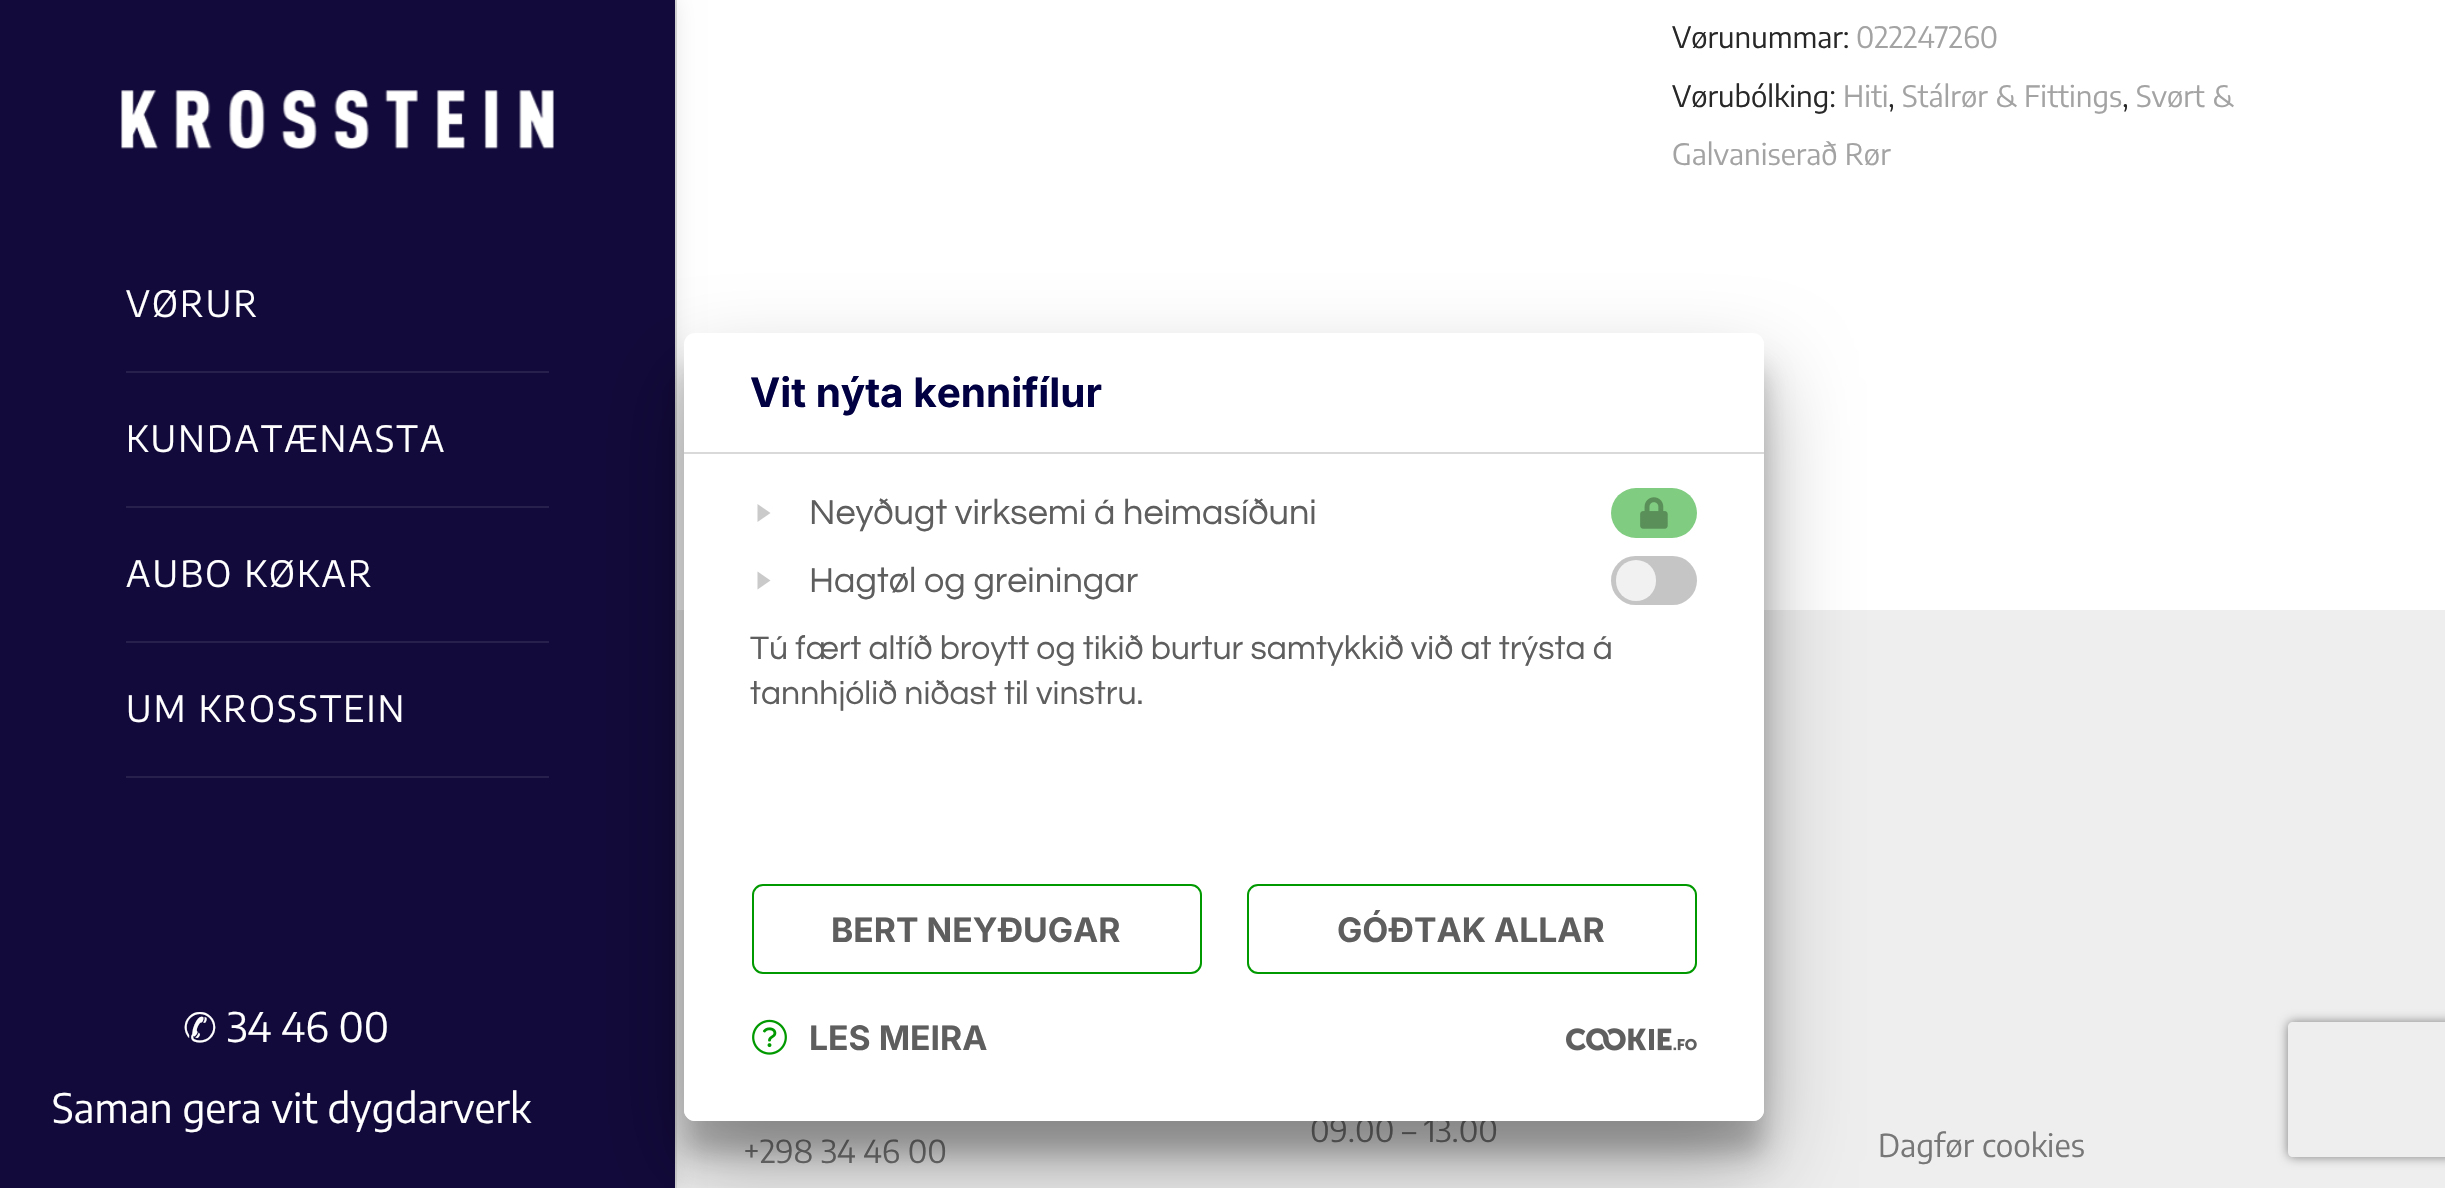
void draw(SkCanvas* c) {
SkPaint p;
p.setAntiAlias(true);
auto F=[&](const char* family, int weight, float size, bool italic = false){SkFontStyle style(weight, SkFontStyle::kNormal_Width,italic ? SkFontStyle::kItalic_Slant : SkFontStyle::kUpright_Slant);SkFont result(fontMgr->matchFamilyStyle(family, style), size);result.setSubpixel(true);return result;};
auto T=[&](const char* s, float x, float y, const SkFont& font){c->drawString(s, x, y, font, p);};
auto L=[&](const char* s, float x, float y, const SkFont& font, const SkPaint& ink, float letter, float word){std::vector<SkGlyphID> glyphs(font.countText(s, strlen(s), SkTextEncoding::kUTF8));std::vector<float> xs(glyphs.size());font.textToGlyphs(s, strlen(s), SkTextEncoding::kUTF8, glyphs);font.getXPos(glyphs, xs, x);float extra = 0;for (size_t i = 0; i < glyphs.size(); i++) {xs[i] += extra;extra += letter + word * (glyphs[i] == font.unicharToGlyph(' '));}c->drawTextBlob(SkTextBlob::MakeFromPosHGlyphs(glyphs, xs, y, font), 0, 0, ink);};
auto R=[&](float x, float y, float w, float h){c->drawRect(SkRect::MakeXYWH(x, y, w, h), p);};
auto Q=[&](float x, float y, float w, float h, float radius){c->drawRoundRect(SkRect::MakeXYWH(x, y, w, h), radius, radius, p);};
auto I=[&](const char* path, float x, float y, float w, float h){auto image = SkImages::DeferredFromEncodedData(SkData::MakeFromFileName(path));c->drawImageRect(image, SkRect::MakeXYWH(x, y, w, h), SkSamplingOptions());};
auto P=[&](const char* data, bool evenOdd = false){SkPath result = *SkParsePath::FromSVGString(data);if (evenOdd) result.setFillType(SkPathFillType::kEvenOdd);return result;};
c->clear(0xffffffff);
p.setColor(0xffdadada);
R(675,0,2,1188);
p.setColor(0xffeeeeee);
R(677,610,1768,578);
p.setColor(0x1a000000);
p.setMaskFilter(SkMaskFilter::MakeBlur(kNormal_SkBlurStyle, 11));
c->drawRect(SkRect::MakeXYWH(0,0,675,1188),p);
p.setMaskFilter(nullptr);
p.setColor(0xff120a3a);
R(0,0,675,1188);
I("1.png",121,90,433,59);
p.setColor(0xff28204c);
R(126,371,423,2);
auto f1 = F("Encode Sans Condensed",400,36);
p.setColor(0xffffffff);
L("VØRUR",126,317,f1,p,2.25,0);
p.setColor(0xff28204c);
R(126,506,423,2);
p.setColor(0xffffffff);
L("KUNDATÆNASTA",126,452,f1,p,2.25,0);
p.setColor(0xff28204c);
R(126,641,423,2);
p.setColor(0xffffffff);
L("AUBO KØKAR",126,587,f1,p,2.25,0);
p.setColor(0xff28204c);
R(126,776,423,2);
p.setColor(0xffffffff);
L("UM KROSSTEIN",126,722,f1,p,2.25,0);
auto f2 = F("DejaVu Sans",400,40.5);
T("✆",183,1042,f2);
auto f3 = F("Encode Sans Condensed",400,40.5);
T("34 46 00",227,1042,f3);
T("Saman gera vit dygdarverk",52,1123,f3);
auto f4 = F("Encode Sans Condensed",400,29.25);
p.setColor(0xff282828);
T("Vørunummar:",1672,48,f4);
p.setColor(0xffa3a3a3);
T("022247260",1856,48,f4);
p.setColor(0xff282828);
T("Vørubólking:",1672,107,f4);
p.setColor(0xffa3a3a3);
T("Hiti",1843,107,f4);
p.setColor(0xff282828);
T(",",1888,107,f4);
p.setColor(0xffa3a3a3);
T("Stálrør & Fittings",1902,107,f4);
p.setColor(0xff282828);
T(",",2122,107,f4);
p.setColor(0xffa3a3a3);
T("Svørt &",2136,107,f4);
T("Galvaniserað Rør",1672,165,f4);
auto f5 = F("Encode Sans Condensed",400,31.5);
p.setColor(0xff777777);
T("+298 34 46 00",743,1163,f5);
T("09.00 – 13.00",1310,1142,f5);
T("Dagfør cookies",1878,1157,f5);
p.setColor(0x38000000);
p.setMaskFilter(SkMaskFilter::MakeBlur(kNormal_SkBlurStyle, 13.5));
c->drawRoundRect(SkRect::MakeXYWH(684,367,1080,787),11,11,p);
p.setMaskFilter(nullptr);
p.setColor(0x4d000000);
p.setMaskFilter(SkMaskFilter::MakeBlur(kNormal_SkBlurStyle, 43));
c->drawRoundRect(SkRect::MakeXYWH(684,376,1080,787),11,11,p);
p.setMaskFilter(nullptr);
p.setColor(0xffffffff);
Q(684,333,1080,788,11);
p.setColor(0xffd9d9d9);
R(684,452,1080,2);
auto f6 = F("Inter",700,40.5);
p.setColor(0xff000042);
T("Vit nýta kennifílur",750,407,f6);
p.setColor(0xffcacaca);
c->drawPath(P("M757.5 504l13 9l-13 9z"),p);
auto f7 = F("Questrial",400,36);
p.setColor(0xff5e5e5e);
T("Neyðugt virksemi á heimasíðuni",809,524,f7);
p.setColor(0xff80cc80);
Q(1611,488,86,50,25);
I("2.png",1640,497,28,32);
p.setColor(0xffcacaca);
c->drawPath(P("M757.5 571.5l13 9l-13 9z"),p);
p.setColor(0xff5e5e5e);
T("Hagtøl og greiningar",809,592,f7);
p.setColor(0xffc6c5c5);
Q(1611,556,86,49,24.5);
p.setColor(0xfff1f1f1);
Q(1616,560,40,41,20);
auto f8 = F("Questrial",400,33.75);
p.setColor(0xff5e5e5e);
T("Tú fært altíð broytt og tikið burtur samtykkið við at trýsta á",750,659,f8);
T("tannhjólið niðast til vinstru.",750,704,f8);
p.setColor(0xffffffff);
c->drawPath(P("M684 866h1080v244c0 6-5 11-11 11h-1058c-6 0-11-5-11-11z"),p);
p.setStroke(true);
p.setStrokeWidth(2);
p.setColor(0xff019900);
c->drawRoundRect(SkRect::MakeXYWH(753,885,448,88),10,10,p);
auto f9 = F("Inter",700,33.75);
p.setStroke(false);
p.setColor(0xff5e5e5e);
T("BERT NEYÐUGAR",831,942,f9);
p.setStroke(true);
p.setColor(0xff019900);
c->drawRoundRect(SkRect::MakeXYWH(1248,885,448,88),10,10,p);
p.setStroke(false);
p.setColor(0xff5e5e5e);
T("GÓÐTAK ALLAR",1337,942,f9);
I("3.png",752,1019,35,36);
T("LES MEIRA",809,1050,f9);
I("4.png",1566,1028,131,23);
c->save();
c->clipPath(P("M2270 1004h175v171h-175zm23 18h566c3 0 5 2 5 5v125c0 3-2 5-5 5h-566c-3 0-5-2-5-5v-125c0-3 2-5 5-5z",true),true);
p.setColor(0xff808080);
p.setMaskFilter(SkMaskFilter::MakeBlur(kNormal_SkBlurStyle, 5.5));
c->drawRoundRect(SkRect::MakeXYWH(2288,1022,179,135),5,5,p);
p.setMaskFilter(nullptr);
c->restore();
}
